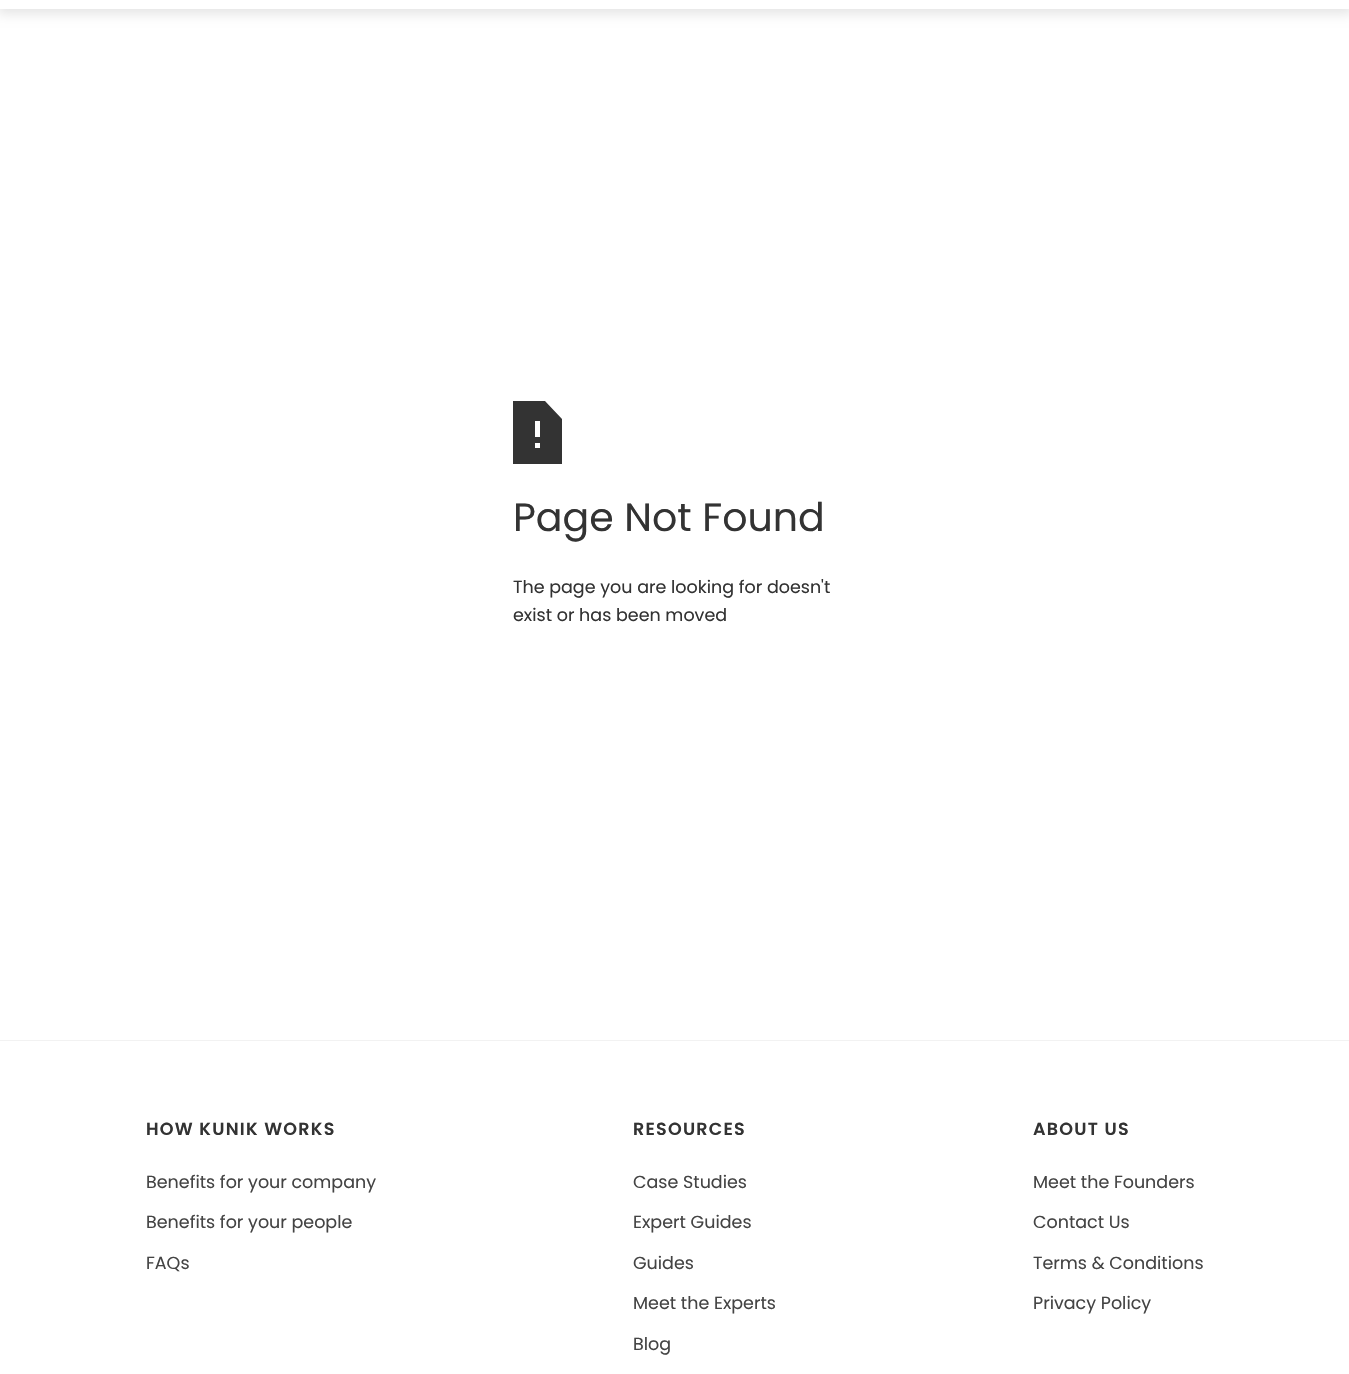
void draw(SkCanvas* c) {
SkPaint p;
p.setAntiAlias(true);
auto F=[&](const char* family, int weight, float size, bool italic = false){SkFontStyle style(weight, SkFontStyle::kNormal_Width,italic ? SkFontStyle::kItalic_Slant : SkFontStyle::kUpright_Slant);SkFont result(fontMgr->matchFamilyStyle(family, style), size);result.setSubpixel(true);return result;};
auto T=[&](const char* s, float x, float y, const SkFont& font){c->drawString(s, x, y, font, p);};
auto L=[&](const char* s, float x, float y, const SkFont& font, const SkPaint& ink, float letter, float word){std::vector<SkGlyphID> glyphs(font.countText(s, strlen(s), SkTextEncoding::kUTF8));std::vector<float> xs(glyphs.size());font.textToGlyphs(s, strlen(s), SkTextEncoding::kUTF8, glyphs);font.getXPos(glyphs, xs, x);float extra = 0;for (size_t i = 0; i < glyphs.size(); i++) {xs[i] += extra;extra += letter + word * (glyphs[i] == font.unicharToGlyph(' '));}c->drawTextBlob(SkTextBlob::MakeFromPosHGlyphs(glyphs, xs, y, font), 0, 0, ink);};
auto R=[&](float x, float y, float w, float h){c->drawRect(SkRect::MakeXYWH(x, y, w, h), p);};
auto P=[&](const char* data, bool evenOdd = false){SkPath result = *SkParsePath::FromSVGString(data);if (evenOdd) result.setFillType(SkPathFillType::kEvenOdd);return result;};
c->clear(0xffffffff);
p.setColor(0x1a000000);
p.setMaskFilter(SkMaskFilter::MakeBlur(kNormal_SkBlurStyle, 6));
c->drawRect(SkRect::MakeXYWH(-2,-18,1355,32),p);
p.setMaskFilter(nullptr);
p.setColor(0xffffffff);
R(0,0,1349,9);
p.setColor(0xff333333);
c->drawPath(P("M513 401h32l17 18v45h-49zm22 20h5v16h-5zm0 22h5v5h-5z",true),p);
auto f1 = F("Poppins",400,39.5);
T("Page Not Found",513,531,f1);
auto f2 = F("Poppins",400,17.5);
T("The page you are looking for doesn't",513,593,f2);
T("exist or has been moved",513,621,f2);
p.setColor(0xfff2f2f2);
R(0,1040,1349,1);
auto f3 = F("Poppins",600,17.5);
p.setColor(0xff333333);
L("HOW KUNIK WORKS",146,1135,f3,p,1.25,0);
p.setColor(0xff444444);
T("Benefits for your company",146,1188,f2);
T("Benefits for your people",146,1228,f2);
T("FAQs",146,1269,f2);
p.setColor(0xff333333);
L("RESOURCES",633,1135,f3,p,1.25,0);
p.setColor(0xff444444);
T("Case Studies",633,1188,f2);
T("Expert Guides",633,1228,f2);
T("Guides",633,1269,f2);
T("Meet the Experts",633,1309,f2);
T("Blog",633,1350,f2);
p.setColor(0xff333333);
L("ABOUT US",1033,1135,f3,p,1.25,0);
p.setColor(0xff444444);
T("Meet the Founders",1033,1188,f2);
T("Contact Us",1033,1228,f2);
T("Terms & Conditions",1033,1269,f2);
T("Privacy Policy",1033,1309,f2);
}
